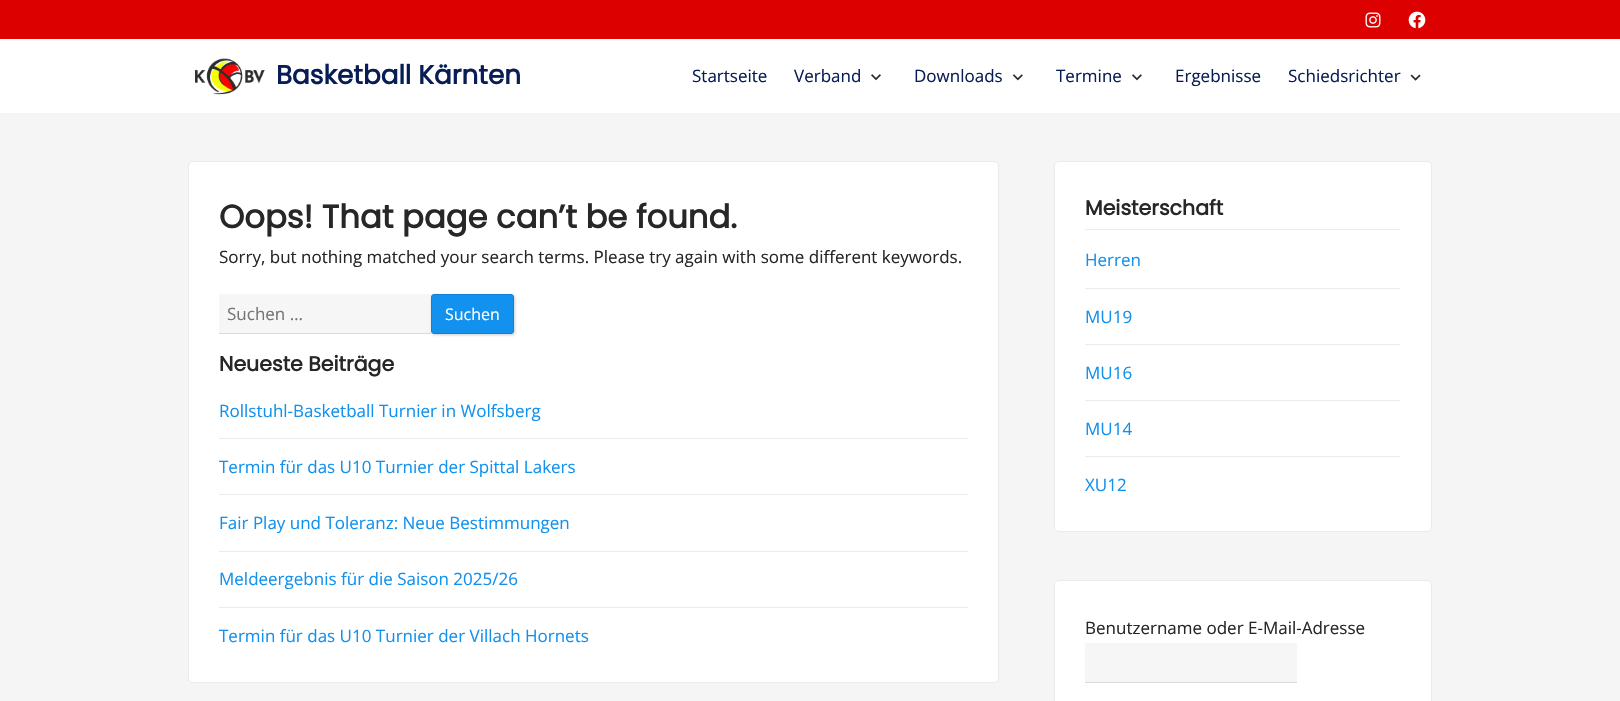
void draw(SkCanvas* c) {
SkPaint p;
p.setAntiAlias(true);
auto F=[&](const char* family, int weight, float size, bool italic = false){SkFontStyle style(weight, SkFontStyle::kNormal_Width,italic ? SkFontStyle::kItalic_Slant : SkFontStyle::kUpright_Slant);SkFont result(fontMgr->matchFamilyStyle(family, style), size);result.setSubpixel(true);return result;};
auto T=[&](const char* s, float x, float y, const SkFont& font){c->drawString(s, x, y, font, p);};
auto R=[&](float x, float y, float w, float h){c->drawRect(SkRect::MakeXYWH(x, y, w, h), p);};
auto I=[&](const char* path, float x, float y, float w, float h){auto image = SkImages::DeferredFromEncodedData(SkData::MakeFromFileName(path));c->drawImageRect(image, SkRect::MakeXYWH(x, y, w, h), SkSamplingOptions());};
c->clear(0xfff5f5f5);
p.setColor(0xffdd0000);
R(0,0,1620,39);
I("1.png",1365,12,16,16);
I("2.png",1408,11,18,18);
p.setColor(0xffffffff);
R(0,39,1620,74);
I("3.png",195,58,70,37);
auto f1 = F("Poppins",700,26.25);
p.setColor(0xff081d56);
T("Basketball Kärnten",276,84,f1);
auto f2 = F("Open Sans",400,17);
T("Startseite",692,82,f2);
T("Verband",794,82,f2);
I("4.png",871,74,10,7);
T("Downloads",914,82,f2);
I("5.png",1012,74,11,7);
T("Termine",1056,82,f2);
I("6.png",1132,74,10,7);
T("Ergebnisse",1175,82,f2);
T("Schiedsrichter",1288,82,f2);
I("7.png",1410,74,11,7);
p.setColor(0xffffffff);
c->drawRoundRect(SkRect::MakeXYWH(188.5,161.5,810,521),4.5,4.5,p);
p.setStroke(true);
p.setStrokeWidth(1);
p.setColor(0xffebebeb);
c->drawRoundRect(SkRect::MakeXYWH(188.5,161.5,810,521),4.5,4.5,p);
auto f3 = F("Poppins",700,32.25);
p.setStroke(false);
p.setColor(0xff272727);
T("Oops! That page can’t be found.",219,228,f3);
T("Sorry, but nothing matched your search terms. Please try again with some different keywords.",219,263,f2);
p.setColor(0xfff6f6f6);
R(219,294,212,39);
p.setColor(0xffdbdbdb);
R(219,333,212,1);
p.setColor(0xff757575);
T("Suchen …",227,320,f2);
p.setColor(0x33000000);
p.setMaskFilter(SkMaskFilter::MakeBlur(kNormal_SkBlurStyle, 1.5));
c->drawRoundRect(SkRect::MakeXYWH(432,295,83,40),3,3,p);
p.setMaskFilter(nullptr);
p.setColor(0xff1291ee);
c->drawRoundRect(SkRect::MakeXYWH(431.5,294.5,82,39),2.5,2.5,p);
p.setStroke(true);
p.setColor(0xff0f82d6);
c->drawRoundRect(SkRect::MakeXYWH(431.5,294.5,82,39),2.5,2.5,p);
auto f4 = F("Open Sans",400,16);
p.setStroke(false);
p.setColor(0xffffffff);
T("Suchen",445,320,f4);
auto f5 = F("Poppins",700,20.5);
p.setColor(0xff272727);
T("Neueste Beiträge",219,371,f5);
p.setColor(0xffebebeb);
R(219,438,749,1);
p.setColor(0xff1291ee);
T("Rollstuhl-Basketball Turnier in Wolfsberg",219,417,f2);
p.setColor(0xffebebeb);
R(219,494,749,1);
p.setColor(0xff1291ee);
T("Termin für das U10 Turnier der Spittal Lakers",219,473,f2);
p.setColor(0xffebebeb);
R(219,551,749,1);
p.setColor(0xff1291ee);
T("Fair Play und Toleranz: Neue Bestimmungen",219,529,f2);
p.setColor(0xffebebeb);
R(219,607,749,1);
p.setColor(0xff1291ee);
T("Meldeergebnis für die Saison 2025/26",219,585,f2);
T("Termin für das U10 Turnier der Villach Hornets",219,642,f2);
p.setColor(0xffffffff);
c->drawRoundRect(SkRect::MakeXYWH(1054.5,161.5,377,370),4.5,4.5,p);
p.setStroke(true);
p.setColor(0xffebebeb);
c->drawRoundRect(SkRect::MakeXYWH(1054.5,161.5,377,370),4.5,4.5,p);
p.setStroke(false);
R(1085,229,315,1);
p.setColor(0xff272727);
T("Meisterschaft",1085,215,f5);
p.setColor(0xffebebeb);
R(1085,288,315,1);
p.setColor(0xff1291ee);
T("Herren",1085,266,f2);
p.setColor(0xffebebeb);
R(1085,344,315,1);
p.setColor(0xff1291ee);
T("MU19",1085,323,f2);
p.setColor(0xffebebeb);
R(1085,400,315,1);
p.setColor(0xff1291ee);
T("MU16",1085,379,f2);
p.setColor(0xffebebeb);
R(1085,456,315,1);
p.setColor(0xff1291ee);
T("MU14",1085,435,f2);
T("XU12",1085,491,f2);
p.setColor(0xffffffff);
c->drawRoundRect(SkRect::MakeXYWH(1054.5,580.5,377,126),4.5,4.5,p);
p.setStroke(true);
p.setColor(0xffebebeb);
c->drawRoundRect(SkRect::MakeXYWH(1054.5,580.5,377,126),4.5,4.5,p);
p.setStroke(false);
p.setColor(0xff272727);
T("Benutzername oder E-Mail-Adresse",1085,634,f2);
p.setColor(0xfff6f6f6);
R(1085,643,212,39);
p.setColor(0xffdbdbdb);
R(1085,682,212,1);
}
